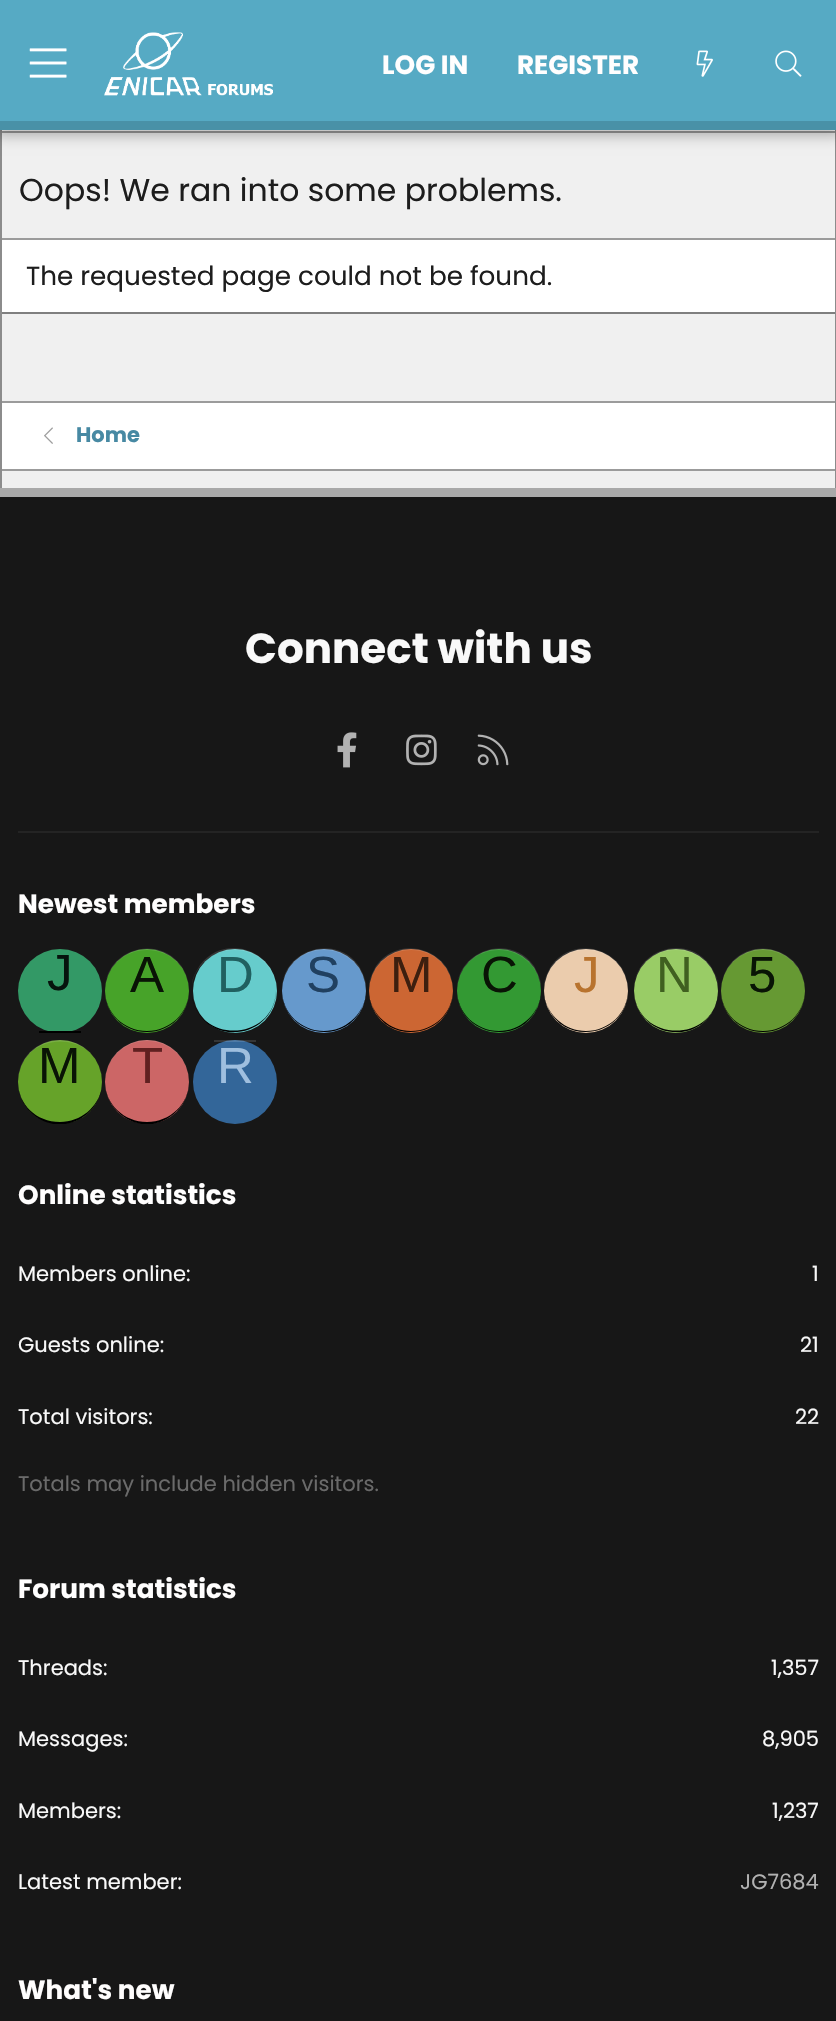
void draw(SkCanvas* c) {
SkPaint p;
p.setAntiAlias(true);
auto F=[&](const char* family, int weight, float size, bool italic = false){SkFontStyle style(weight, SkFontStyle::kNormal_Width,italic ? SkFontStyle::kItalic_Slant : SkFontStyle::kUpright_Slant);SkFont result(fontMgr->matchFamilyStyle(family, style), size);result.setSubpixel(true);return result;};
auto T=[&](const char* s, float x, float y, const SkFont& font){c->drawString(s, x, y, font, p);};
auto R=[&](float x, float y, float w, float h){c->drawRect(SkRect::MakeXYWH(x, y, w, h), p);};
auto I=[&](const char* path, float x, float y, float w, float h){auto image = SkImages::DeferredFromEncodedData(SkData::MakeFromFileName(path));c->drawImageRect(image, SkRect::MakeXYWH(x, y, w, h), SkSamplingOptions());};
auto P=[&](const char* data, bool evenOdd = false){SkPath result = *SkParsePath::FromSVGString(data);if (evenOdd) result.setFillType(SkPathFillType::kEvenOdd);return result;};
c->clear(0xfff0f0f0);
p.setColor(0xff8c8c8c);
R(835,130,1,358);
R(0,130,2,358);
p.setColor(0xffffffff);
R(2,130,833,1);
p.setColor(0xff9b9b9b);
R(2,131,833,2);
p.setColor(0x4d000000);
p.setMaskFilter(SkMaskFilter::MakeBlur(kNormal_SkBlurStyle, 7));
c->drawRect(SkRect::MakeXYWH(-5,-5,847,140),p);
p.setMaskFilter(nullptr);
p.setColor(0xff56aac4);
R(0,0,836,121);
p.setColor(0xff4991a7);
R(0,121,836,9);
I("1.png",29,48,38,30);
I("2.png",104,32,169,64);
auto f1 = F("Poppins",700,26.25);
p.setColor(0xfffffefe);
T("LOG IN",382,74,f1);
T("REGISTER",517,74,f1);
I("3.png",696,50,17,27);
I("4.png",775,50,27,27);
auto f2 = F("Poppins",400,31.5);
p.setColor(0xff1d1d1d);
T("Oops! We ran into some problems.",19,201,f2);
p.setColor(0xffffffff);
R(2,240,833,72);
p.setColor(0xff9b9b9b);
R(2,238,833,2);
p.setColor(0xff7f7f7f);
R(2,312,833,2);
auto f3 = F("Poppins",400,26.25);
p.setColor(0xff1d1d1d);
T("The requested page could not be found.",26,285,f3);
p.setColor(0xffffffff);
R(2,403,833,66);
p.setColor(0xff9b9b9b);
R(2,401,833,2);
R(2,469,833,2);
I("5.png",44,427,9,17);
auto f4 = F("Poppins",700,21);
p.setColor(0xff4789a3);
T("Home",76,442,f4);
p.setColor(0xff171717);
R(0,497,836,1524);
p.setColor(0xffa9a9a9);
R(0,488,836,9);
p.setColor(0xff242424);
R(18,831,801,2);
auto f5 = F("Poppins",700,42);
p.setColor(0xfff9f9f9);
T("Connect with us",245,663,f5);
I("6.png",337,732,20,36);
I("7.png",406,734,31,32);
I("8.png",477,734,32,32);
p.setColor(0xfffffefe);
T("Newest members",18,913,f1);
p.setColor(0xff339966);
c->drawCircle(60,991,42,p);
p.setColor(0xff000000);
R(39,1031,42,2);
auto f6 = F("Liberation Sans",400,51);
p.setColor(0xff06130d);
T("J",47,990,f6);
p.setColor(0xff47a329);
c->drawCircle(147,991,42,p);
p.setColor(0x21ffffff);
c->drawPath(P("M147 950c-23 0-42 18-42 40c0-39 49-56 74-27c6 7 10 17 10 27c0-22-19-40-42-40z"),p);
p.setColor(0xff000000);
c->drawPath(P("M147 1032c23 0 42-18 42-42c0 23-19 41-42 41c-23 0-42-18-42-41c0 24 19 42 42 42z"),p);
p.setColor(0xff091405);
T("A",130,992,f6);
p.setColor(0xff66cccc);
c->drawCircle(235,991,42,p);
p.setColor(0x21ffffff);
c->drawPath(P("M234 950c-21 0-38 15-42 34c0-6 5-14 8-19c24-32 76-16 76 25c0-22-18-40-42-40z"),p);
p.setColor(0xff000000);
c->drawPath(P("M192 996c8 49 83 45 84-6c0 44-58 58-79 21c-2-4-5-11-5-15z"),p);
p.setColor(0xff206060);
T("D",217,992,f6);
p.setColor(0xff6699cc);
c->drawCircle(324,991,42,p);
p.setColor(0x21ffffff);
c->drawPath(P("M324 950c-23 0-42 18-42 40c0-41 54-57 77-24c3 6 7 13 7 20c-3-20-21-36-42-36z"),p);
p.setColor(0xff000000);
c->drawPath(P("M282 990c0 23 19 41 42 41c21 0 39-16 42-36c0 4-3 11-5 15c-20 38-79 24-79-20z"),p);
p.setColor(0xff204060);
T("S",306,992,f6);
p.setColor(0xffcc6633);
c->drawCircle(411,991,42,p);
p.setColor(0x21ffffff);
c->drawPath(P("M411 950c-21 0-39 16-42 36c0-7 4-14 7-20c23-33 77-17 77 24c0-22-19-40-42-40z"),p);
p.setColor(0xff000000);
c->drawPath(P("M369 995c3 20 21 36 42 36c23 0 42-18 42-41c0 44-59 58-79 20c-2-4-5-11-5-15z"),p);
p.setColor(0xff3d1f0f);
T("M",390,992,f6);
p.setColor(0xff339933);
c->drawCircle(499,991,42,p);
p.setColor(0x21ffffff);
c->drawPath(P("M499 950c-23 0-42 18-42 40c0-41 54-57 77-24c3 6 7 13 7 20c-3-20-21-36-42-36z"),p);
p.setColor(0xff000000);
c->drawPath(P("M457 990c0 23 19 41 42 41c21 0 39-16 42-36c0 4-3 11-5 15c-20 38-79 24-79-20z"),p);
p.setColor(0xff091405);
T("C",481,992,f6);
p.setColor(0xffebccad);
c->drawCircle(586,991,42,p);
p.setColor(0x21ffffff);
c->drawPath(P("M586 950c-21 0-39 16-42 36c0-7 4-14 7-20c23-33 77-17 77 24c0-22-19-40-42-40z"),p);
p.setColor(0xff000000);
c->drawPath(P("M544 995c3 20 21 36 42 36c23 0 42-18 42-41c0 44-59 58-79 20c-2-4-5-11-5-15z"),p);
p.setColor(0xffb8732e);
T("J",574,992,f6);
p.setColor(0xff99cc66);
c->drawCircle(676,991,42,p);
p.setColor(0x21ffffff);
c->drawPath(P("M676 950c-24 0-42 18-42 40c0-41 52-57 76-25c3 5 8 13 8 19c-4-19-21-34-42-34z"),p);
p.setColor(0xff000000);
c->drawPath(P("M634 990c1 51 76 55 84 6c0 4-3 11-5 15c-21 37-79 23-79-21z"),p);
p.setColor(0xff406020);
T("N",656,992,f6);
p.setColor(0xff669933);
c->drawCircle(763,991,42,p);
p.setColor(0x21ffffff);
c->drawPath(P("M763 950c-23 0-42 18-42 40c0-10 4-20 10-27c25-29 74-12 74 27c0-22-19-40-42-40z"),p);
p.setColor(0xff000000);
c->drawPath(P("M763 1032c23 0 42-18 42-42c0 23-19 41-42 41c-23 0-42-18-42-41c0 24 19 42 42 42z"),p);
p.setColor(0xff091405);
T("5",748,992,f6);
p.setColor(0xff66a329);
c->drawCircle(60,1082,42,p);
p.setColor(0x21ffffff);
c->drawPath(P("M60 1040c21 0 38 15 42 35v1c-8-49-83-45-84 6c0-24 18-42 42-42z"),p);
p.setColor(0xff000000);
c->drawPath(P("M66 1124h-13c-20-4-35-21-35-42c0 22 18 40 42 40c21 0 38-15 42-34c-3 18-18 33-36 36z"),p);
p.setColor(0xff091405);
T("M",38,1083,f6);
p.setColor(0xffcc6666);
c->drawCircle(147,1082,42,p);
p.setColor(0x21ffffff);
c->drawPath(P("M147 1040c-23 0-42 18-42 42c0-23 19-41 42-41c23 0 42 18 42 41c0-24-19-42-42-42z"),p);
p.setColor(0xff000000);
c->drawPath(P("M141 1124c-20-4-36-21-36-42c0 22 19 40 42 40c23 0 42-18 42-40c0 21-16 38-36 42z"),p);
p.setColor(0xff602020);
T("T",132,1083,f6);
p.setColor(0xff336699);
c->drawCircle(235,1082,42,p);
p.setColor(0x21ffffff);
R(214,1040,42,2);
p.setColor(0xff9fbfdf);
T("R",217,1083,f6);
p.setColor(0xfffffefe);
T("Online statistics",18,1204,f1);
auto f7 = F("Poppins",400,21);
p.setColor(0xfff9f9f9);
T("Members online:",18,1281,f7);
T("1",812,1281,f7);
T("Guests online:",18,1352,f7);
T("21",800,1352,f7);
T("Total visitors:",18,1424,f7);
T("22",795,1424,f7);
p.setColor(0xff6a6a6a);
T("Totals may include hidden visitors.",18,1491,f7);
p.setColor(0xfffffefe);
T("Forum statistics",18,1598,f1);
p.setColor(0xfff9f9f9);
T("Threads:",18,1675,f7);
T("1,357",771,1675,f7);
T("Messages:",18,1746,f7);
T("8,905",762,1746,f7);
T("Members:",18,1818,f7);
T("1,237",772,1818,f7);
T("Latest member:",18,1889,f7);
p.setColor(0xffb2b2b2);
T("JG7684",740,1889,f7);
p.setColor(0xfffffefe);
T("What's new",18,1999,f1);
}
